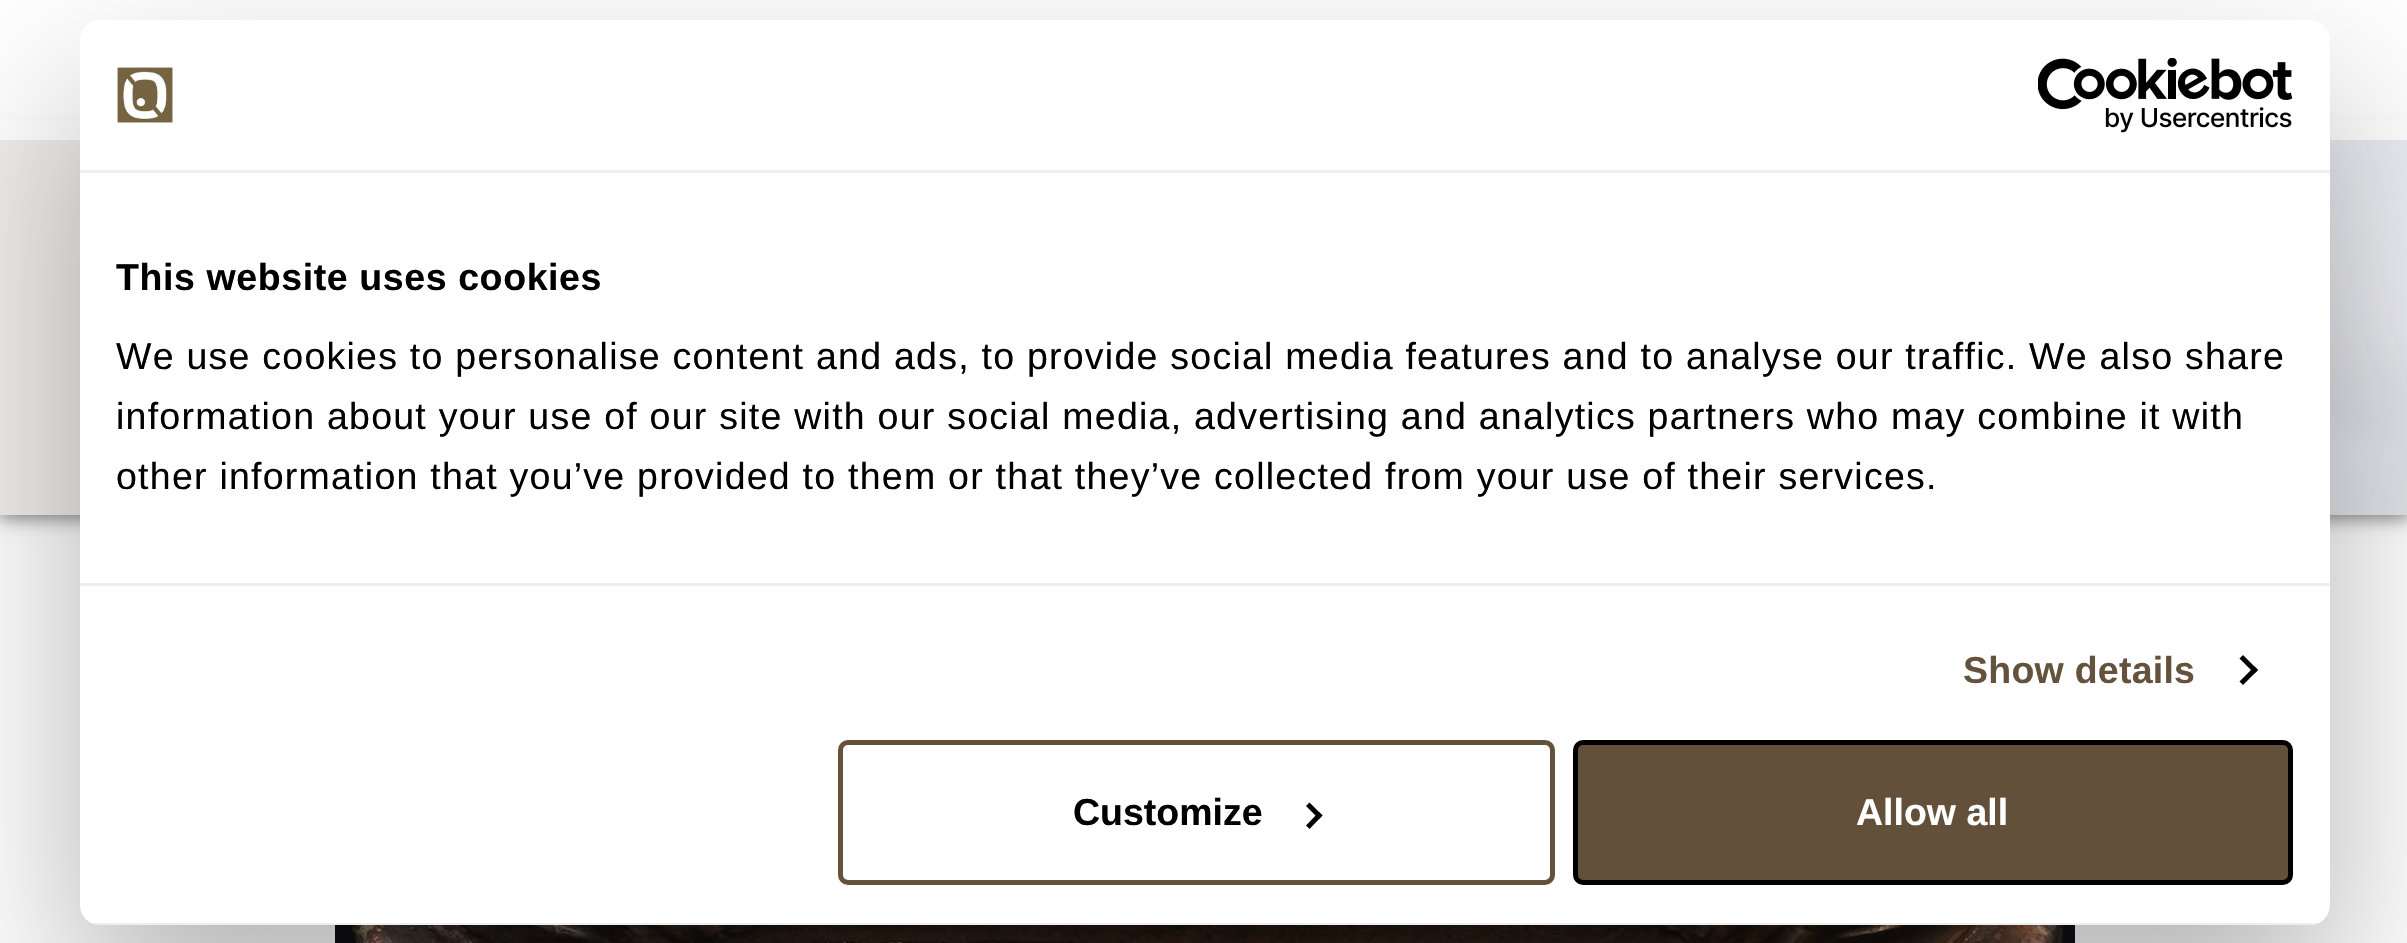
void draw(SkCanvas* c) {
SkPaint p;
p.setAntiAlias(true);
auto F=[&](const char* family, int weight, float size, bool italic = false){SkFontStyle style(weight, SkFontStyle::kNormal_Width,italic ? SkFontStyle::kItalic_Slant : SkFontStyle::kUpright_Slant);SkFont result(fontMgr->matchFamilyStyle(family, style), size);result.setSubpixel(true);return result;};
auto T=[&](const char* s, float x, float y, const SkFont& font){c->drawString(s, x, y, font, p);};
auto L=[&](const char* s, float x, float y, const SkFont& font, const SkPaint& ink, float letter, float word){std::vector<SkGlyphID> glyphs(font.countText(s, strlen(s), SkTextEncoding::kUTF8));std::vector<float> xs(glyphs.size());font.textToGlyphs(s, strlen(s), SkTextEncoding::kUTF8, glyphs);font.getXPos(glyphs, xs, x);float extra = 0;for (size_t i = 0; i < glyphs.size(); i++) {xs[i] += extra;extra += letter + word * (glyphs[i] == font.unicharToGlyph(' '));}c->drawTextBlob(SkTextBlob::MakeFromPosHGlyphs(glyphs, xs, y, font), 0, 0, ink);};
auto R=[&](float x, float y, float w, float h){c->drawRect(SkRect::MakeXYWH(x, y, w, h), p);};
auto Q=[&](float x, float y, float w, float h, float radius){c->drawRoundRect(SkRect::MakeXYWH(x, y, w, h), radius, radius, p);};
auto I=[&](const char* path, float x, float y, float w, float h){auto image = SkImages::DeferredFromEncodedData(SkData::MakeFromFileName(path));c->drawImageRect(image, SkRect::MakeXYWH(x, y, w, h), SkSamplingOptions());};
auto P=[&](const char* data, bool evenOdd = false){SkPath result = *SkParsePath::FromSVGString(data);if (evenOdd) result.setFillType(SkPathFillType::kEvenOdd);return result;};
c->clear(0xffffffff);
p.setColor(0xff808080);
p.setMaskFilter(SkMaskFilter::MakeBlur(kNormal_SkBlurStyle, 9));
c->drawRect(SkRect::MakeXYWH(-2,138,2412,380),p);
p.setMaskFilter(nullptr);
p.setColor(0xffefedeb);
R(0,140,80,375);
I("1.png",2330,140,77,375);
p.setColor(0xffffffff);
R(0,120,2407,20);
I("4.png",335,925,1740,18);
p.setColor(0x4d000000);
p.setMaskFilter(SkMaskFilter::MakeBlur(kNormal_SkBlurStyle, 85));
c->drawRoundRect(SkRect::MakeXYWH(80,100,2250,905),20,20,p);
p.setMaskFilter(nullptr);
p.setColor(0xffffffff);
Q(80,20,2250,905,20);
p.setColor(0xffeeeeee);
R(80,170,2250,3);
I("2.png",117,67,56,56);
I("3.png",2038,58,255,75);
R(80,583,2250,3);
auto f1 = F("Liberation Sans",700,37.5);
p.setColor(0xff000000);
L("This website uses cookies",116,290,f1,p,.6,0);
auto f2 = F("Liberation Sans",400,37.5);
L("We use cookies to personalise content and ads, to provide social media features and to analyse our traffic. We also share",116,369,f2,p,1.25,0);
L("information about your use of our site with our social media, advertising and analytics partners who may combine it with",116,429,f2,p,1.25,0);
L("other information that you’ve provided to them or that they’ve collected from your use of their services.",116,489,f2,p,1.25,0);
p.setColor(0xff64523d);
L("Show details",1963,683,f1,p,.25,0);
p.setColor(0xff000000);
c->drawPath(P("M2243 655l15 15l-3.5 3.5l-15-15z"),p);
c->drawPath(P("M2254.5 666.5l3.5 3.5l-15 15l-3.5-3.5z"),p);
c->save();
c->clipPath(P("M100 20h2210c11 0 20 9 20 20v865c0 11-9 20-20 20h-2210c-11 0-20-9-20-20v-865c0-11 9-20 20-20z"),true);
p.setColor(0xffeeeeee);
R(91,923,2228,2);
c->restore();
p.setStroke(true);
p.setStrokeWidth(5);
p.setColor(0xff64523d);
c->drawRoundRect(SkRect::MakeXYWH(840.5,742.5,712,140),7.5,7.5,p);
p.setStroke(false);
p.setColor(0xff000000);
T("Customize",1073,825,f1);
c->drawPath(P("M1309.5 802.5l13 13l-3.5 3.5l-13-13z"),p);
c->drawPath(P("M1319 812l3.5 3.5l-13 13.5l-3.5-3.5z"),p);
p.setColor(0xff63503b);
c->drawRoundRect(SkRect::MakeXYWH(1575.5,742.5,715,140),7.5,7.5,p);
p.setStroke(true);
p.setColor(0xff000000);
c->drawRoundRect(SkRect::MakeXYWH(1575.5,742.5,715,140),7.5,7.5,p);
p.setStroke(false);
p.setColor(0xffffffff);
T("Allow all",1856,825,f1);
}
